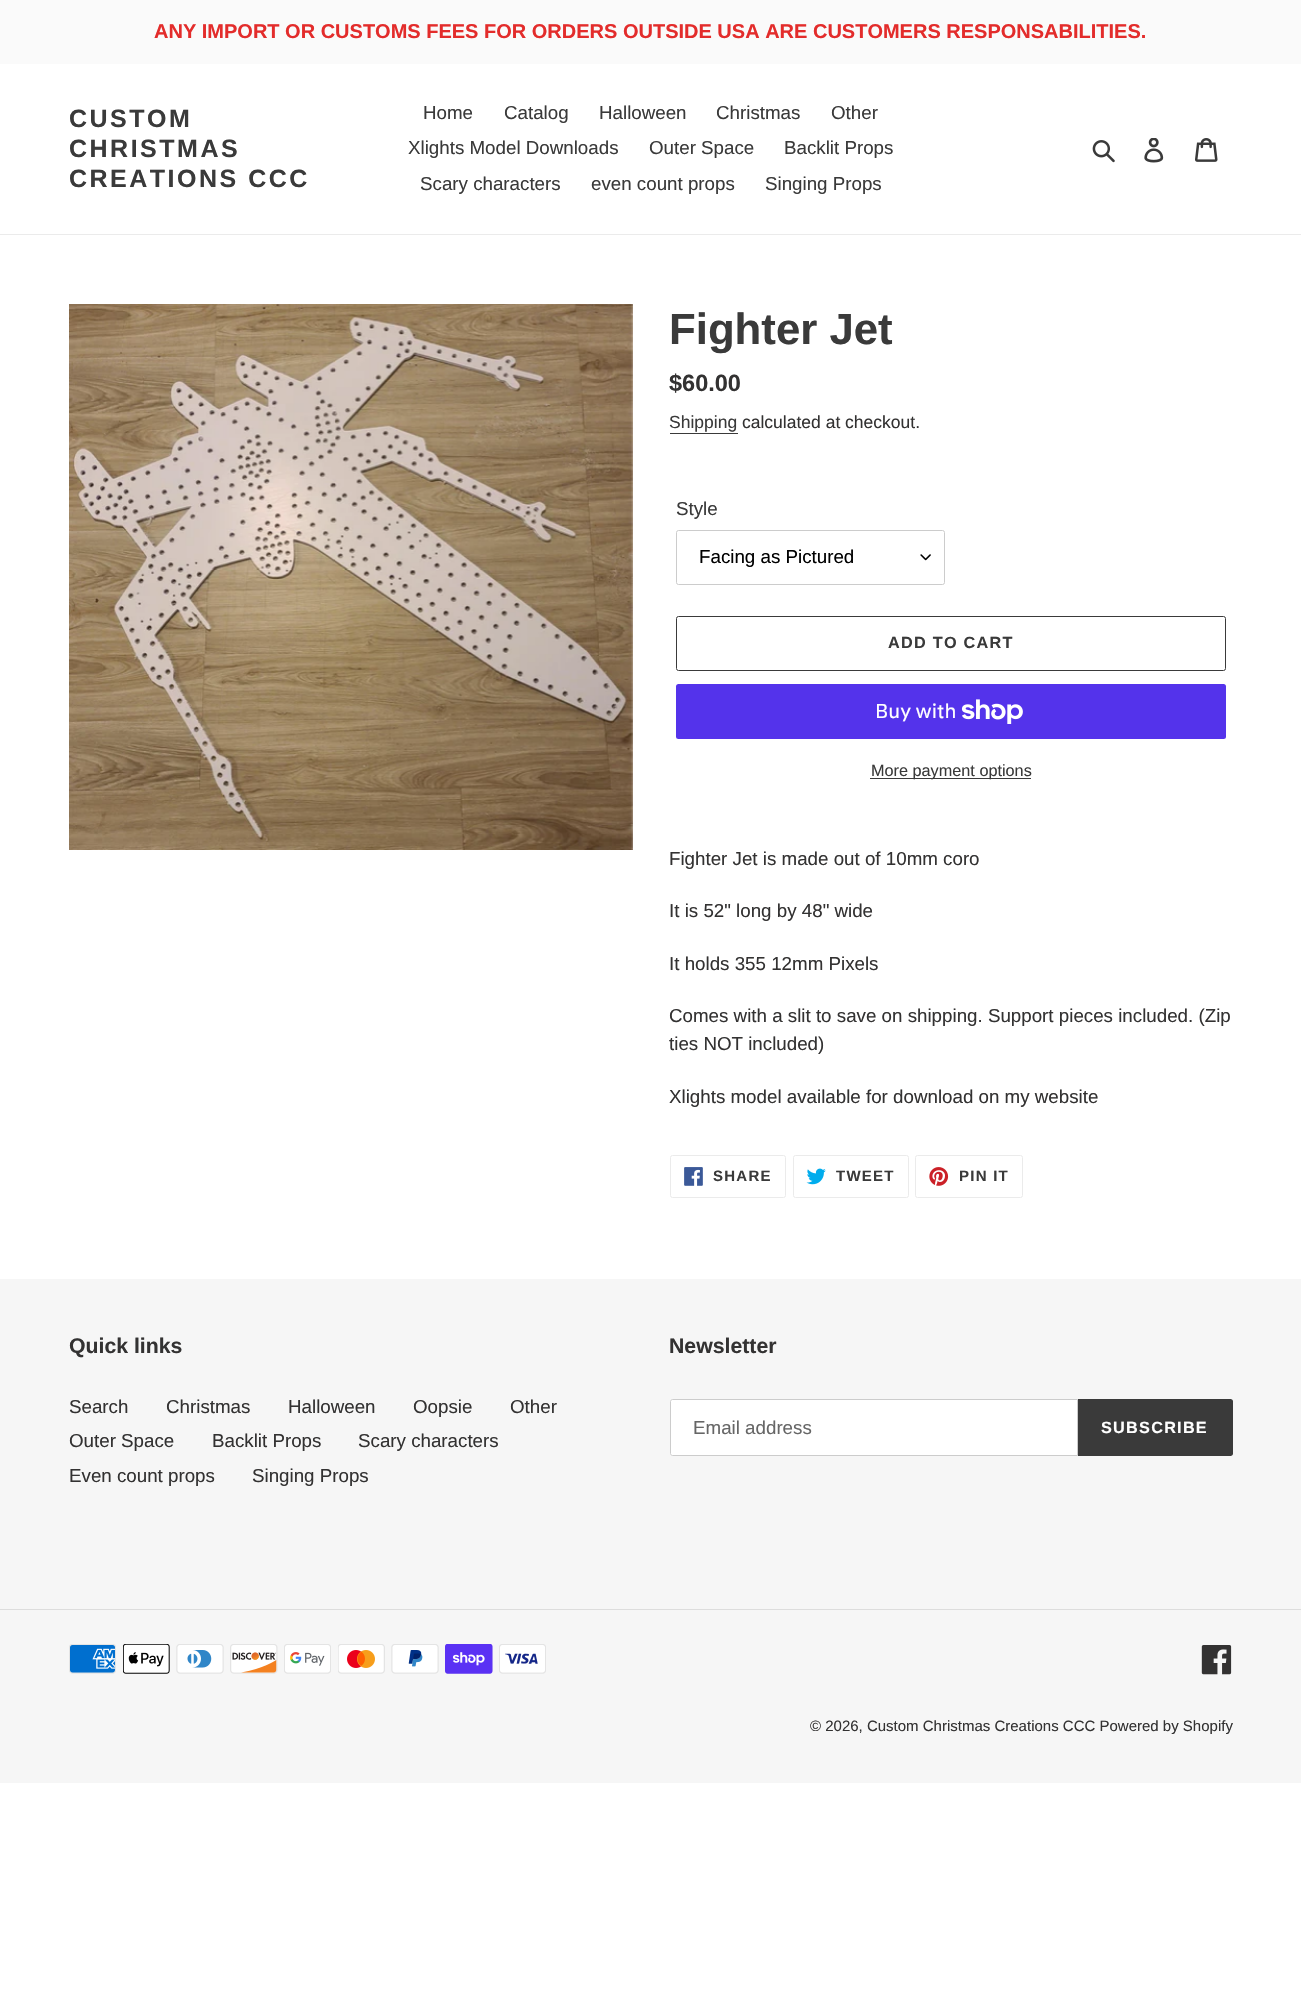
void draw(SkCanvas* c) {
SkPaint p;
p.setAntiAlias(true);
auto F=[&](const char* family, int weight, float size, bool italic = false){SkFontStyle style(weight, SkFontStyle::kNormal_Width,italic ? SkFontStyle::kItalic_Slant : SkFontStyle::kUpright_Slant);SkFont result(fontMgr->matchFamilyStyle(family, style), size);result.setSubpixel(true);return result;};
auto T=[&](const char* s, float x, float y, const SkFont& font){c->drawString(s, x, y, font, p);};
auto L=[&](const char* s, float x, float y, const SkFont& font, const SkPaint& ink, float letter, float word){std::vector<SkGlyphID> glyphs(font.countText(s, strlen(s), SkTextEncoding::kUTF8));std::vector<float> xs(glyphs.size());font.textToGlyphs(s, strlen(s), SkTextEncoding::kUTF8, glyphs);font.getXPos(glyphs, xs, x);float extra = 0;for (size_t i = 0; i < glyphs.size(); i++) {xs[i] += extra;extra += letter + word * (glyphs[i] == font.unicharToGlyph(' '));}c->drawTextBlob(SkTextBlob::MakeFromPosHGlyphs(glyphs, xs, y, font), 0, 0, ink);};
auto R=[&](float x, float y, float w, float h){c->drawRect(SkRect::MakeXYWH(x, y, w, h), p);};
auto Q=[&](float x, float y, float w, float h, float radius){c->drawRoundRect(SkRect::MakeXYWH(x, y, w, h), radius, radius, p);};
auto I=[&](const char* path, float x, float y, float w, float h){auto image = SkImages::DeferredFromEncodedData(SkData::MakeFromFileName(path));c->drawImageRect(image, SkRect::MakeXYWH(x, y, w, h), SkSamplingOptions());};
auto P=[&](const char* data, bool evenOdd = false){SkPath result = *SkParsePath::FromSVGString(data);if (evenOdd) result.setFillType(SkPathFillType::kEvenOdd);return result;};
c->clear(0xffffffff);
p.setColor(0xfffafafa);
R(0,0,1301,64);
auto f1 = F("Liberation Sans",700,20);
p.setColor(0xffe32c2b);
T("ANY IMPORT OR CUSTOMS FEES FOR ORDERS OUTSIDE USA ARE CUSTOMERS RESPONSABILITIES.",154,38,f1);
p.setColor(0xffebebeb);
R(0,234,1301,1);
auto f2 = F("Liberation Sans",700,25);
p.setColor(0xff3a3a3a);
L("CUSTOM",69,127,f2,p,2.5,0);
L("CHRISTMAS",69,157,f2,p,2.5,0);
L("CREATIONS CCC",69,187,f2,p,2.5,0);
auto f3 = F("Liberation Sans",400,18.75);
T("Home",423,119,f3);
T("Catalog",504,119,f3);
T("Halloween",599,119,f3);
T("Christmas",716,119,f3);
T("Other",831,119,f3);
T("Xlights Model Downloads",408,154,f3);
T("Outer Space",649,154,f3);
T("Backlit Props",784,154,f3);
T("Scary characters",420,190,f3);
T("even count props",591,190,f3);
T("Singing Props",765,190,f3);
I("1.png",1092,140,23,23);
I("2.png",1144,138,20,25);
I("3.png",1195,138,23,24);
I("4.png",69,304,564,546);
auto f4 = F("Liberation Sans",700,43.75);
T("Fighter Jet",669,344,f4);
auto f5 = F("Liberation Sans",700,23.5);
p.setColor(0xff333232);
T("$60.00",669,391,f5);
auto f6 = F("Liberation Sans",400,17.5);
p.setColor(0xff3a3a3a);
T("Shipping",669,428,f6);
R(670,433,68,1);
p.setColor(0xff333232);
T("calculated at checkout.",742,428,f6);
p.setColor(0xff3a3a3a);
T("Style",676,515,f3);
I("5.png",920,554,11,7);
p.setStroke(true);
p.setStrokeWidth(1);
p.setColor(0xffcccccc);
c->drawRoundRect(SkRect::MakeXYWH(676.5,530.5,268,54),2,2,p);
p.setStroke(false);
p.setColor(0xff000000);
T("Facing as Pictured",699,563,f3);
p.setStroke(true);
p.setColor(0xff3a3a3a);
c->drawRoundRect(SkRect::MakeXYWH(676.5,616.5,549,54),2,2,p);
auto f7 = F("Liberation Sans",700,16.25);
p.setStroke(false);
L("ADD TO CART",888,648,f7,p,1.25,0);
p.setColor(0xff5433eb);
Q(676,684,550,55,2.5);
auto f8 = F("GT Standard",400,20);
p.setColor(0xffffffff);
T("Buy with",875,718,f8);
I("6.png",961,699,62,25);
p.setColor(0xff3a3a3a);
R(870,778,161,1);
auto f9 = F("Liberation Sans",400,16.25);
T("More payment options",871,776,f9);
p.setColor(0xff333232);
T("Fighter Jet is made out of 10mm coro",669,865,f3);
T("It is 52\" long by 48\" wide",669,917,f3);
T("It holds 355 12mm Pixels",669,970,f3);
T("Comes with a slit to save on shipping. Support pieces included. (Zip",669,1022,f3);
T("ties NOT included)",669,1050,f3);
T("Xlights model available for download on my website",669,1103,f3);
p.setStroke(true);
p.setColor(0xffebebeb);
c->drawRoundRect(SkRect::MakeXYWH(670.5,1155.5,115,42),2,2,p);
I("7.png",684,1167,19,19);
auto f10 = F("Liberation Sans",700,15);
p.setStroke(false);
p.setColor(0xff3a3a3a);
L("SHARE",713,1181,f10,p,1.25,0);
p.setStroke(true);
p.setColor(0xffebebeb);
c->drawRoundRect(SkRect::MakeXYWH(793.5,1155.5,115,42),2,2,p);
I("8.png",806,1168,20,17);
p.setStroke(false);
p.setColor(0xff3a3a3a);
L("TWEET",836,1181,f10,p,1.25,0);
p.setStroke(true);
p.setColor(0xffebebeb);
c->drawRoundRect(SkRect::MakeXYWH(915.5,1155.5,107,42),2,2,p);
I("9.png",929,1167,20,19);
p.setStroke(false);
p.setColor(0xff3a3a3a);
L("PIN IT",959,1181,f10,p,1.25,0);
p.setColor(0xfff6f6f6);
R(0,1279,1301,504);
auto f11 = F("Liberation Sans",700,21.25);
p.setColor(0xff333232);
T("Quick links",69,1353,f11);
T("Search",69,1413,f3);
T("Christmas",166,1413,f3);
T("Halloween",288,1413,f3);
T("Oopsie",413,1413,f3);
T("Other",510,1413,f3);
T("Outer Space",69,1447,f3);
T("Backlit Props",212,1447,f3);
T("Scary characters",358,1447,f3);
T("Even count props",69,1482,f3);
T("Singing Props",252,1482,f3);
T("Newsletter",669,1353,f11);
p.setColor(0xffffffff);
c->drawPath(P("M672.5 1399.5h405v56h-405c-1 0-2-1-2-2v-52c0-1 1-2 2-2z"),p);
p.setStroke(true);
p.setColor(0xffcccccc);
c->drawPath(P("M672.5 1399.5h405v56h-405c-1 0-2-1-2-2v-52c0-1 1-2 2-2z"),p);
p.setStroke(false);
p.setColor(0xff666666);
T("Email address",693,1434,f3);
p.setColor(0xff3a3a3a);
c->drawPath(P("M1078 1399h152.5c1.5 0 2.5 1 2.5 2.5v52c0 1.5-1 2.5-2.5 2.5h-152.5z"),p);
p.setColor(0xffffffff);
L("SUBSCRIBE",1101,1433,f7,p,1.25,0);
p.setColor(0xffdddddd);
R(0,1609,1301,1);
I("10.png",69,1644,47,30);
I("11.png",123,1644,47,30);
I("12.png",176,1644,48,30);
I("13.png",230,1644,48,30);
I("14.png",284,1644,47,30);
I("15.png",338,1644,47,30);
I("16.png",391,1644,48,30);
I("17.png",445,1644,48,30);
I("18.png",499,1644,47,30);
I("19.png",1201,1645,31,30);
auto f12 = F("Liberation Sans",400,15);
p.setColor(0xff333232);
T("© 2026, Custom Christmas Creations CCC Powered by Shopify",810,1731,f12);
}
